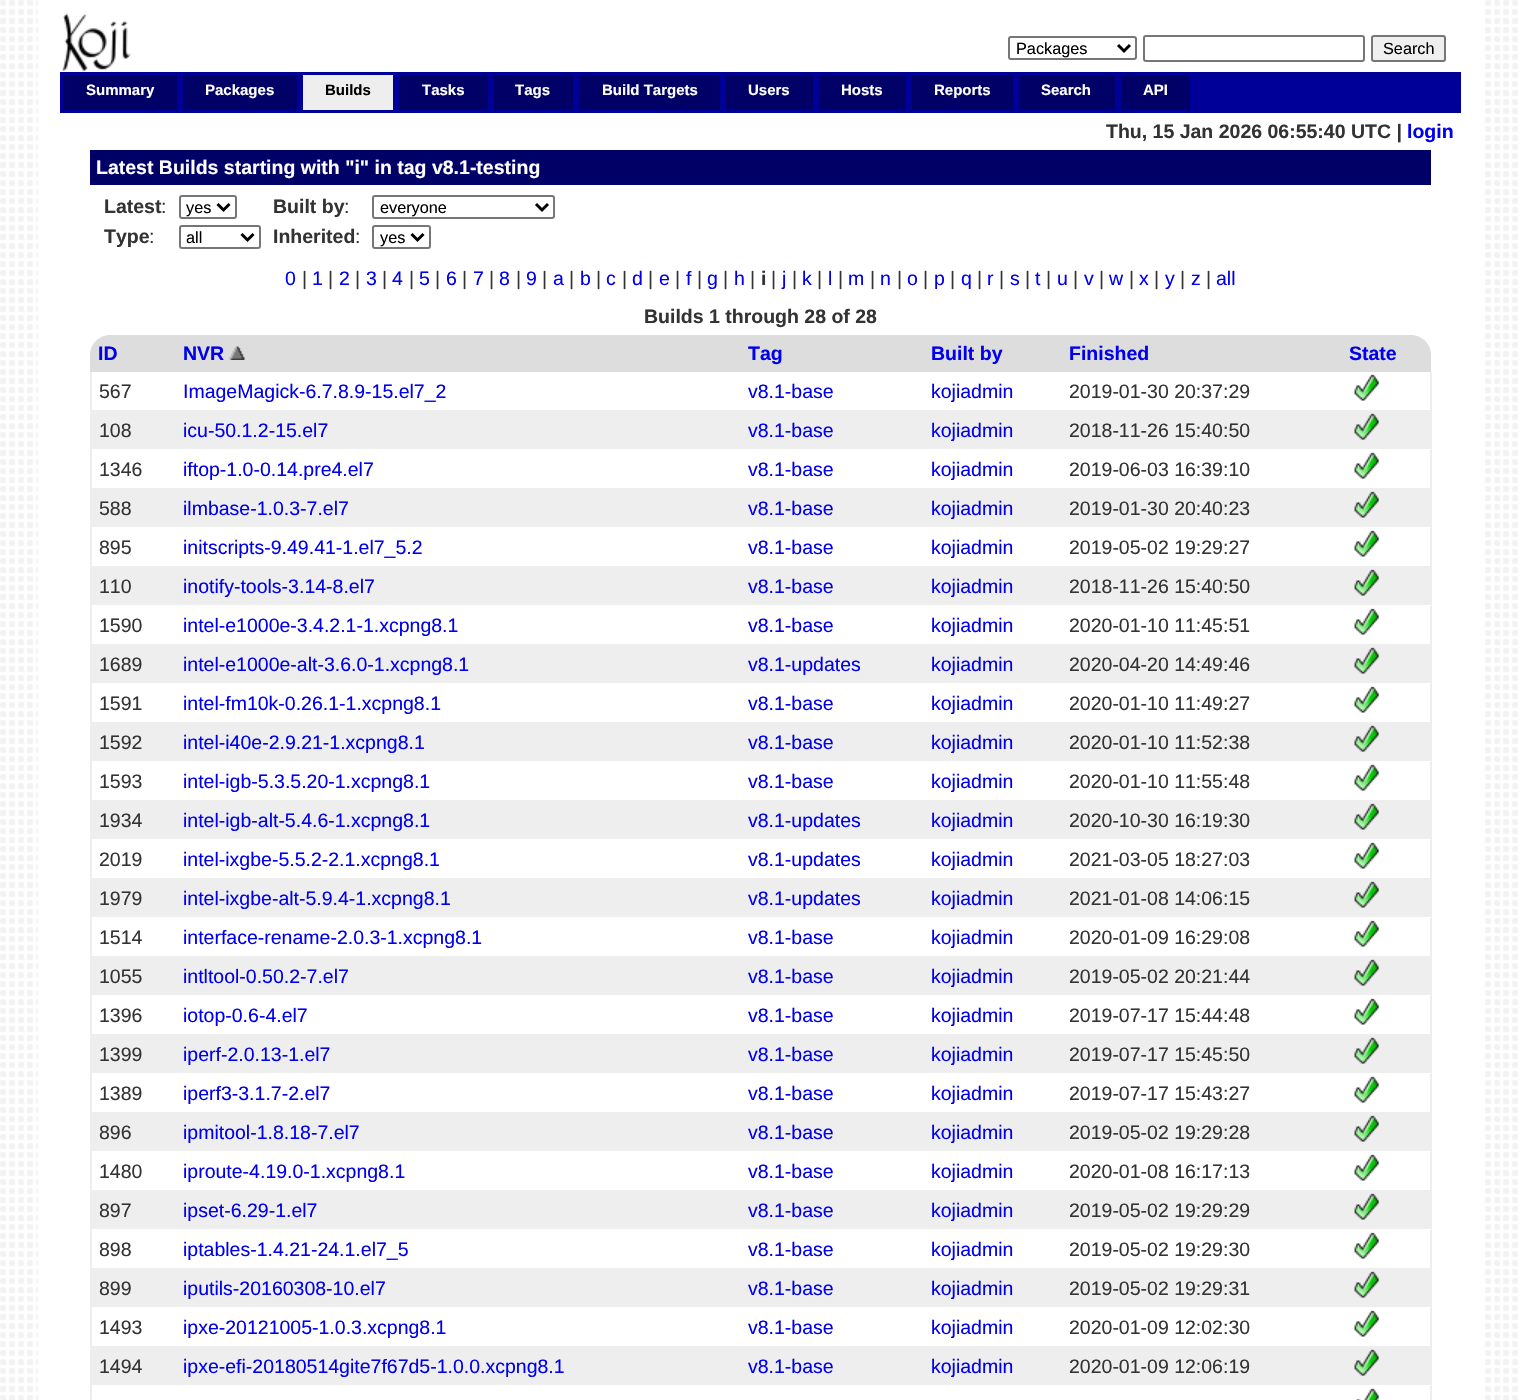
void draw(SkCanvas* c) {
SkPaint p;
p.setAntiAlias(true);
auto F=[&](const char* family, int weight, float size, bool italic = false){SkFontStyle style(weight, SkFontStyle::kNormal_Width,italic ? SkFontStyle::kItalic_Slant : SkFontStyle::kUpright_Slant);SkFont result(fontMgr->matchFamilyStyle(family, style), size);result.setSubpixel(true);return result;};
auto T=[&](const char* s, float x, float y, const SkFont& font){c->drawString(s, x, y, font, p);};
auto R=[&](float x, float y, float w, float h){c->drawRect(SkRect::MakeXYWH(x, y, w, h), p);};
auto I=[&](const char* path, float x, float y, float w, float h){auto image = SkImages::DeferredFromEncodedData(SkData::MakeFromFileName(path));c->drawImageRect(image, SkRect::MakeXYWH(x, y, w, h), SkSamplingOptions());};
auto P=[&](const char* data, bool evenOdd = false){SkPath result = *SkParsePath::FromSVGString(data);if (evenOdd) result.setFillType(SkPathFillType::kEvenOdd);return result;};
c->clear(0xffffffff);
I("1.png",0,0,1518,1400);
p.setColor(0xffffffff);
R(38,0,1445,1400);
I("2.png",62,13,69,59);
p.setStroke(true);
p.setStrokeWidth(2);
p.setColor(0xff767676);
c->drawRoundRect(SkRect::MakeXYWH(1009,37,127,22),2,2,p);
p.setStrokeWidth(3);
p.setColor(0xff000000);
c->drawPath(P("M1118 45l6 6l6-6"),p);
auto f1 = F("Liberation Sans",400,16.25);
p.setStroke(false);
T("Packages",1016,54,f1);
p.setStroke(true);
p.setStrokeWidth(2);
p.setColor(0xff767676);
c->drawRoundRect(SkRect::MakeXYWH(1144,36,220,25),2,2,p);
p.setStroke(false);
p.setColor(0xffefefef);
c->drawRoundRect(SkRect::MakeXYWH(1372,36,73,25),2,2,p);
p.setStroke(true);
p.setColor(0xff767676);
c->drawRoundRect(SkRect::MakeXYWH(1372,36,73,25),2,2,p);
p.setStroke(false);
p.setColor(0xff000000);
T("Search",1383,54,f1);
p.setColor(0xff000099);
R(1193,72,268,41);
p.setColor(0xff000066);
c->drawRect(SkRect::MakeXYWH(61.5,73.5,117,38),p);
p.setStroke(true);
p.setStrokeWidth(3);
p.setColor(0xff000099);
c->drawRect(SkRect::MakeXYWH(61.5,73.5,117,38),p);
auto f2 = F("Liberation Sans",700,15);
p.setStroke(false);
p.setColor(0xffffffff);
T("Summary",86,95,f2);
p.setColor(0xff000066);
c->drawRect(SkRect::MakeXYWH(181.5,73.5,117,38),p);
p.setStroke(true);
p.setColor(0xff000099);
c->drawRect(SkRect::MakeXYWH(181.5,73.5,117,38),p);
p.setStroke(false);
p.setColor(0xffffffff);
T("Packages",205,95,f2);
p.setStroke(true);
p.setColor(0xff000099);
c->drawRect(SkRect::MakeXYWH(301.5,73.5,93,38),p);
p.setStroke(false);
p.setColor(0xffeeeeee);
R(303,75,90,35);
p.setColor(0xff000000);
T("Builds",325,95,f2);
p.setColor(0xff000066);
c->drawRect(SkRect::MakeXYWH(397.5,73.5,92,38),p);
p.setStroke(true);
p.setColor(0xff000099);
c->drawRect(SkRect::MakeXYWH(397.5,73.5,92,38),p);
p.setStroke(false);
p.setColor(0xffffffff);
T("Tasks",422,95,f2);
p.setColor(0xff000066);
c->drawRect(SkRect::MakeXYWH(492.5,73.5,82,38),p);
p.setStroke(true);
p.setColor(0xff000099);
c->drawRect(SkRect::MakeXYWH(492.5,73.5,82,38),p);
p.setStroke(false);
p.setColor(0xffffffff);
T("Tags",515,95,f2);
p.setColor(0xff000066);
c->drawRect(SkRect::MakeXYWH(577.5,73.5,144,38),p);
p.setStroke(true);
p.setColor(0xff000099);
c->drawRect(SkRect::MakeXYWH(577.5,73.5,144,38),p);
p.setStroke(false);
p.setColor(0xffffffff);
T("Build Targets",602,95,f2);
p.setColor(0xff000066);
c->drawRect(SkRect::MakeXYWH(724.5,73.5,90,38),p);
p.setStroke(true);
p.setColor(0xff000099);
c->drawRect(SkRect::MakeXYWH(724.5,73.5,90,38),p);
p.setStroke(false);
p.setColor(0xffffffff);
T("Users",748,95,f2);
p.setColor(0xff000066);
c->drawRect(SkRect::MakeXYWH(817.5,73.5,90,38),p);
p.setStroke(true);
p.setColor(0xff000099);
c->drawRect(SkRect::MakeXYWH(817.5,73.5,90,38),p);
p.setStroke(false);
p.setColor(0xffffffff);
T("Hosts",841,95,f2);
p.setColor(0xff000066);
c->drawRect(SkRect::MakeXYWH(910.5,73.5,104,38),p);
p.setStroke(true);
p.setColor(0xff000099);
c->drawRect(SkRect::MakeXYWH(910.5,73.5,104,38),p);
p.setStroke(false);
p.setColor(0xffffffff);
T("Reports",934,95,f2);
p.setColor(0xff000066);
c->drawRect(SkRect::MakeXYWH(1017.5,73.5,99,38),p);
p.setStroke(true);
p.setColor(0xff000099);
c->drawRect(SkRect::MakeXYWH(1017.5,73.5,99,38),p);
p.setStroke(false);
p.setColor(0xffffffff);
T("Search",1041,95,f2);
p.setColor(0xff000066);
c->drawRect(SkRect::MakeXYWH(1119.5,73.5,72,38),p);
p.setStroke(true);
p.setColor(0xff000099);
c->drawRect(SkRect::MakeXYWH(1119.5,73.5,72,38),p);
p.setStroke(false);
p.setColor(0xffffffff);
T("API",1143,95,f2);
auto f3 = F("Liberation Sans",700,19.5);
p.setColor(0xff333333);
T("Thu, 15 Jan 2026 06:55:40 UTC |",1106,138,f3);
p.setColor(0xff0000ee);
T("login",1407,138,f3);
p.setColor(0xff000066);
R(90,150,1341,35);
p.setColor(0xffffffff);
T("Latest Builds starting with \"i\" in tag v8.1-testing",96,174,f3);
p.setColor(0xff333333);
T("Latest",104,213,f3);
auto f4 = F("Liberation Sans",400,19.5);
T(":",161,213,f4);
p.setStroke(true);
p.setStrokeWidth(2);
p.setColor(0xff767676);
c->drawRoundRect(SkRect::MakeXYWH(180,196,56,22),2,2,p);
p.setStrokeWidth(3);
p.setColor(0xff000000);
c->drawPath(P("M217.5 204l6 6l6-6"),p);
p.setStroke(false);
T("yes",186,213,f1);
p.setColor(0xff333333);
T("Built by",273,213,f3);
T(":",344,213,f4);
p.setStroke(true);
p.setStrokeWidth(2);
p.setColor(0xff767676);
c->drawRoundRect(SkRect::MakeXYWH(373,196,181,22),2,2,p);
p.setStrokeWidth(3);
p.setColor(0xff000000);
c->drawPath(P("M536 204l6 6l6-6"),p);
p.setStroke(false);
T("everyone",380,213,f1);
p.setColor(0xff333333);
T("Type",104,243,f3);
T(":",149,243,f4);
p.setStroke(true);
p.setStrokeWidth(2);
p.setColor(0xff767676);
c->drawRoundRect(SkRect::MakeXYWH(180,226,80,22),2,2,p);
p.setStrokeWidth(3);
p.setColor(0xff000000);
c->drawPath(P("M241.5 234l6 6l6-6"),p);
p.setStroke(false);
T("all",186,243,f1);
p.setColor(0xff333333);
T("Inherited",273,243,f3);
T(":",355,243,f4);
p.setStroke(true);
p.setStrokeWidth(2);
p.setColor(0xff767676);
c->drawRoundRect(SkRect::MakeXYWH(373,226,57,22),2,2,p);
p.setStrokeWidth(3);
p.setColor(0xff000000);
c->drawPath(P("M411.5 234l6 6l6-6"),p);
p.setStroke(false);
T("yes",380,243,f1);
p.setColor(0xff0000ee);
T("0",285,285,f4);
p.setColor(0xff333333);
T("|",302,285,f4);
p.setColor(0xff0000ee);
T("1",312,285,f4);
p.setColor(0xff333333);
T("|",328,285,f4);
p.setColor(0xff0000ee);
T("2",339,285,f4);
p.setColor(0xff333333);
T("|",355,285,f4);
p.setColor(0xff0000ee);
T("3",366,285,f4);
p.setColor(0xff333333);
T("|",382,285,f4);
p.setColor(0xff0000ee);
T("4",392,285,f4);
p.setColor(0xff333333);
T("|",409,285,f4);
p.setColor(0xff0000ee);
T("5",419,285,f4);
p.setColor(0xff333333);
T("|",435,285,f4);
p.setColor(0xff0000ee);
T("6",446,285,f4);
p.setColor(0xff333333);
T("|",462,285,f4);
p.setColor(0xff0000ee);
T("7",473,285,f4);
p.setColor(0xff333333);
T("|",489,285,f4);
p.setColor(0xff0000ee);
T("8",499,285,f4);
p.setColor(0xff333333);
T("|",516,285,f4);
p.setColor(0xff0000ee);
T("9",526,285,f4);
p.setColor(0xff333333);
T("|",542,285,f4);
p.setColor(0xff0000ee);
T("a",553,285,f4);
p.setColor(0xff333333);
T("|",569,285,f4);
p.setColor(0xff0000ee);
T("b",580,285,f4);
p.setColor(0xff333333);
T("|",596,285,f4);
p.setColor(0xff0000ee);
T("c",606,285,f4);
p.setColor(0xff333333);
T("|",622,285,f4);
p.setColor(0xff0000ee);
T("d",632,285,f4);
p.setColor(0xff333333);
T("|",648,285,f4);
p.setColor(0xff0000ee);
T("e",659,285,f4);
p.setColor(0xff333333);
T("|",675,285,f4);
p.setColor(0xff0000ee);
T("f",686,285,f4);
p.setColor(0xff333333);
T("|",697,285,f4);
p.setColor(0xff0000ee);
T("g",707,285,f4);
p.setColor(0xff333333);
T("|",723,285,f4);
p.setColor(0xff0000ee);
T("h",734,285,f4);
p.setColor(0xff333333);
T("|",750,285,f4);
T("i",761,285,f3);
T("|",771,285,f4);
p.setColor(0xff0000ee);
T("j",782,285,f4);
p.setColor(0xff333333);
T("|",792,285,f4);
p.setColor(0xff0000ee);
T("k",802,285,f4);
p.setColor(0xff333333);
T("|",817,285,f4);
p.setColor(0xff0000ee);
T("l",828,285,f4);
p.setColor(0xff333333);
T("|",838,285,f4);
p.setColor(0xff0000ee);
T("m",848,285,f4);
p.setColor(0xff333333);
T("|",870,285,f4);
p.setColor(0xff0000ee);
T("n",880,285,f4);
p.setColor(0xff333333);
T("|",897,285,f4);
p.setColor(0xff0000ee);
T("o",907,285,f4);
p.setColor(0xff333333);
T("|",923,285,f4);
p.setColor(0xff0000ee);
T("p",934,285,f4);
p.setColor(0xff333333);
T("|",950,285,f4);
p.setColor(0xff0000ee);
T("q",961,285,f4);
p.setColor(0xff333333);
T("|",977,285,f4);
p.setColor(0xff0000ee);
T("r",987,285,f4);
p.setColor(0xff333333);
T("|",999,285,f4);
p.setColor(0xff0000ee);
T("s",1010,285,f4);
p.setColor(0xff333333);
T("|",1025,285,f4);
p.setColor(0xff0000ee);
T("t",1035,285,f4);
p.setColor(0xff333333);
T("|",1046,285,f4);
p.setColor(0xff0000ee);
T("u",1057,285,f4);
p.setColor(0xff333333);
T("|",1073,285,f4);
p.setColor(0xff0000ee);
T("v",1084,285,f4);
p.setColor(0xff333333);
T("|",1099,285,f4);
p.setColor(0xff0000ee);
T("w",1109,285,f4);
p.setColor(0xff333333);
T("|",1129,285,f4);
p.setColor(0xff0000ee);
T("x",1139,285,f4);
p.setColor(0xff333333);
T("|",1154,285,f4);
p.setColor(0xff0000ee);
T("y",1165,285,f4);
p.setColor(0xff333333);
T("|",1180,285,f4);
p.setColor(0xff0000ee);
T("z",1191,285,f4);
p.setColor(0xff333333);
T("|",1206,285,f4);
p.setColor(0xff0000ee);
T("all",1216,285,f4);
p.setColor(0xff333333);
T("Builds 1 through 28 of 28",644,323,f3);
p.setColor(0xffdddddd);
c->drawPath(P("M110 335h66v37h-86v-17c0-11 9-20 20-20z"),p);
p.setColor(0xff0000ee);
T("ID",98,360,f3);
p.setColor(0xffdddddd);
R(176,335,1165,37);
p.setColor(0xff0000ee);
T("NVR",183,360,f3);
I("3.png",229,346,16,14);
T("Tag",748,360,f3);
T("Built by",931,360,f3);
T("Finished",1069,360,f3);
p.setColor(0xffdddddd);
c->drawPath(P("M1341 335h70c11 0 20 9 20 20v17h-90z"),p);
p.setColor(0xff0000ee);
T("State",1349,360,f3);
p.setColor(0xffeeeeee);
R(90,410,1251,1);
R(90,372,2,78);
p.setColor(0xff333333);
T("567",99,398,f4);
p.setColor(0xff0000ee);
T("ImageMagick-6.7.8.9-15.el7_2",183,398,f4);
T("v8.1-base",748,398,f4);
T("kojiadmin",931,398,f4);
p.setColor(0xff333333);
T("2019-01-30 20:37:29",1069,398,f4);
p.setColor(0xffeeeeee);
R(1430,372,2,1028);
R(1341,410,90,1);
I("4.png",1354,374,25,27);
R(92,411,1338,38);
p.setColor(0xff333333);
T("108",99,437,f4);
p.setColor(0xff0000ee);
T("icu-50.1.2-15.el7",183,437,f4);
T("v8.1-base",748,437,f4);
T("kojiadmin",931,437,f4);
p.setColor(0xff333333);
T("2018-11-26 15:40:50",1069,437,f4);
p.setColor(0xffffffff);
R(1430,449,1,1);
I("5.png",1354,413,25,27);
p.setColor(0xffeeeeee);
R(90,488,1341,1);
R(90,450,2,78);
p.setColor(0xff333333);
T("1346",99,476,f4);
p.setColor(0xff0000ee);
T("iftop-1.0-0.14.pre4.el7",183,476,f4);
T("v8.1-base",748,476,f4);
T("kojiadmin",931,476,f4);
p.setColor(0xff333333);
T("2019-06-03 16:39:10",1069,476,f4);
I("4.png",1354,452,25,27);
p.setColor(0xffeeeeee);
R(92,489,1338,38);
p.setColor(0xff333333);
T("588",99,515,f4);
p.setColor(0xff0000ee);
T("ilmbase-1.0.3-7.el7",183,515,f4);
T("v8.1-base",748,515,f4);
T("kojiadmin",931,515,f4);
p.setColor(0xff333333);
T("2019-01-30 20:40:23",1069,515,f4);
p.setColor(0xffffffff);
R(1430,527,1,1);
I("5.png",1354,491,25,27);
p.setColor(0xffeeeeee);
R(90,566,1341,1);
R(90,528,2,78);
p.setColor(0xff333333);
T("895",99,554,f4);
p.setColor(0xff0000ee);
T("initscripts-9.49.41-1.el7_5.2",183,554,f4);
T("v8.1-base",748,554,f4);
T("kojiadmin",931,554,f4);
p.setColor(0xff333333);
T("2019-05-02 19:29:27",1069,554,f4);
I("4.png",1354,530,25,27);
p.setColor(0xffeeeeee);
R(92,567,1338,38);
p.setColor(0xff333333);
T("110",99,593,f4);
p.setColor(0xff0000ee);
T("inotify-tools-3.14-8.el7",183,593,f4);
T("v8.1-base",748,593,f4);
T("kojiadmin",931,593,f4);
p.setColor(0xff333333);
T("2018-11-26 15:40:50",1069,593,f4);
p.setColor(0xffffffff);
R(1430,605,1,1);
I("5.png",1354,569,25,27);
p.setColor(0xffeeeeee);
R(90,644,1341,1);
R(90,606,2,78);
p.setColor(0xff333333);
T("1590",99,632,f4);
p.setColor(0xff0000ee);
T("intel-e1000e-3.4.2.1-1.xcpng8.1",183,632,f4);
T("v8.1-base",748,632,f4);
T("kojiadmin",931,632,f4);
p.setColor(0xff333333);
T("2020-01-10 11:45:51",1069,632,f4);
I("4.png",1354,608,25,27);
p.setColor(0xffeeeeee);
R(92,645,1338,38);
p.setColor(0xff333333);
T("1689",99,671,f4);
p.setColor(0xff0000ee);
T("intel-e1000e-alt-3.6.0-1.xcpng8.1",183,671,f4);
T("v8.1-updates",748,671,f4);
T("kojiadmin",931,671,f4);
p.setColor(0xff333333);
T("2020-04-20 14:49:46",1069,671,f4);
p.setColor(0xffffffff);
R(1430,683,1,1);
I("5.png",1354,647,25,27);
p.setColor(0xffeeeeee);
R(90,722,1341,1);
R(90,684,2,78);
p.setColor(0xff333333);
T("1591",99,710,f4);
p.setColor(0xff0000ee);
T("intel-fm10k-0.26.1-1.xcpng8.1",183,710,f4);
T("v8.1-base",748,710,f4);
T("kojiadmin",931,710,f4);
p.setColor(0xff333333);
T("2020-01-10 11:49:27",1069,710,f4);
I("4.png",1354,686,25,27);
p.setColor(0xffeeeeee);
R(92,723,1338,38);
p.setColor(0xff333333);
T("1592",99,749,f4);
p.setColor(0xff0000ee);
T("intel-i40e-2.9.21-1.xcpng8.1",183,749,f4);
T("v8.1-base",748,749,f4);
T("kojiadmin",931,749,f4);
p.setColor(0xff333333);
T("2020-01-10 11:52:38",1069,749,f4);
p.setColor(0xffffffff);
R(1430,761,1,1);
I("5.png",1354,725,25,27);
p.setColor(0xffeeeeee);
R(90,800,1341,1);
R(90,762,2,78);
p.setColor(0xff333333);
T("1593",99,788,f4);
p.setColor(0xff0000ee);
T("intel-igb-5.3.5.20-1.xcpng8.1",183,788,f4);
T("v8.1-base",748,788,f4);
T("kojiadmin",931,788,f4);
p.setColor(0xff333333);
T("2020-01-10 11:55:48",1069,788,f4);
I("4.png",1354,764,25,27);
p.setColor(0xffeeeeee);
R(92,801,1338,38);
p.setColor(0xff333333);
T("1934",99,827,f4);
p.setColor(0xff0000ee);
T("intel-igb-alt-5.4.6-1.xcpng8.1",183,827,f4);
T("v8.1-updates",748,827,f4);
T("kojiadmin",931,827,f4);
p.setColor(0xff333333);
T("2020-10-30 16:19:30",1069,827,f4);
p.setColor(0xffffffff);
R(1430,839,1,1);
I("5.png",1354,803,25,27);
p.setColor(0xffeeeeee);
R(90,878,1341,1);
R(90,840,2,78);
p.setColor(0xff333333);
T("2019",99,866,f4);
p.setColor(0xff0000ee);
T("intel-ixgbe-5.5.2-2.1.xcpng8.1",183,866,f4);
T("v8.1-updates",748,866,f4);
T("kojiadmin",931,866,f4);
p.setColor(0xff333333);
T("2021-03-05 18:27:03",1069,866,f4);
I("4.png",1354,842,25,27);
p.setColor(0xffeeeeee);
R(92,879,1338,38);
p.setColor(0xff333333);
T("1979",99,905,f4);
p.setColor(0xff0000ee);
T("intel-ixgbe-alt-5.9.4-1.xcpng8.1",183,905,f4);
T("v8.1-updates",748,905,f4);
T("kojiadmin",931,905,f4);
p.setColor(0xff333333);
T("2021-01-08 14:06:15",1069,905,f4);
p.setColor(0xffffffff);
R(1430,917,1,1);
I("5.png",1354,881,25,27);
p.setColor(0xffeeeeee);
R(90,956,1341,1);
R(90,918,2,78);
p.setColor(0xff333333);
T("1514",99,944,f4);
p.setColor(0xff0000ee);
T("interface-rename-2.0.3-1.xcpng8.1",183,944,f4);
T("v8.1-base",748,944,f4);
T("kojiadmin",931,944,f4);
p.setColor(0xff333333);
T("2020-01-09 16:29:08",1069,944,f4);
I("4.png",1354,920,25,27);
p.setColor(0xffeeeeee);
R(92,957,1338,38);
p.setColor(0xff333333);
T("1055",99,983,f4);
p.setColor(0xff0000ee);
T("intltool-0.50.2-7.el7",183,983,f4);
T("v8.1-base",748,983,f4);
T("kojiadmin",931,983,f4);
p.setColor(0xff333333);
T("2019-05-02 20:21:44",1069,983,f4);
p.setColor(0xffffffff);
R(1430,995,1,1);
I("5.png",1354,959,25,27);
p.setColor(0xffeeeeee);
R(90,1034,1341,1);
R(90,996,2,78);
p.setColor(0xff333333);
T("1396",99,1022,f4);
p.setColor(0xff0000ee);
T("iotop-0.6-4.el7",183,1022,f4);
T("v8.1-base",748,1022,f4);
T("kojiadmin",931,1022,f4);
p.setColor(0xff333333);
T("2019-07-17 15:44:48",1069,1022,f4);
I("4.png",1354,998,25,27);
p.setColor(0xffeeeeee);
R(92,1035,1338,38);
p.setColor(0xff333333);
T("1399",99,1061,f4);
p.setColor(0xff0000ee);
T("iperf-2.0.13-1.el7",183,1061,f4);
T("v8.1-base",748,1061,f4);
T("kojiadmin",931,1061,f4);
p.setColor(0xff333333);
T("2019-07-17 15:45:50",1069,1061,f4);
p.setColor(0xffffffff);
R(1430,1073,1,1);
I("5.png",1354,1037,25,27);
p.setColor(0xffeeeeee);
R(90,1112,1341,1);
R(90,1074,2,78);
p.setColor(0xff333333);
T("1389",99,1100,f4);
p.setColor(0xff0000ee);
T("iperf3-3.1.7-2.el7",183,1100,f4);
T("v8.1-base",748,1100,f4);
T("kojiadmin",931,1100,f4);
p.setColor(0xff333333);
T("2019-07-17 15:43:27",1069,1100,f4);
I("4.png",1354,1076,25,27);
p.setColor(0xffeeeeee);
R(92,1113,1338,38);
p.setColor(0xff333333);
T("896",99,1139,f4);
p.setColor(0xff0000ee);
T("ipmitool-1.8.18-7.el7",183,1139,f4);
T("v8.1-base",748,1139,f4);
T("kojiadmin",931,1139,f4);
p.setColor(0xff333333);
T("2019-05-02 19:29:28",1069,1139,f4);
p.setColor(0xffffffff);
R(1430,1151,1,1);
I("5.png",1354,1115,25,27);
p.setColor(0xffeeeeee);
R(90,1190,1341,1);
R(90,1152,2,78);
p.setColor(0xff333333);
T("1480",99,1178,f4);
p.setColor(0xff0000ee);
T("iproute-4.19.0-1.xcpng8.1",183,1178,f4);
T("v8.1-base",748,1178,f4);
T("kojiadmin",931,1178,f4);
p.setColor(0xff333333);
T("2020-01-08 16:17:13",1069,1178,f4);
I("4.png",1354,1154,25,27);
p.setColor(0xffeeeeee);
R(92,1191,1338,38);
p.setColor(0xff333333);
T("897",99,1217,f4);
p.setColor(0xff0000ee);
T("ipset-6.29-1.el7",183,1217,f4);
T("v8.1-base",748,1217,f4);
T("kojiadmin",931,1217,f4);
p.setColor(0xff333333);
T("2019-05-02 19:29:29",1069,1217,f4);
p.setColor(0xffffffff);
R(1430,1229,1,1);
I("5.png",1354,1193,25,27);
p.setColor(0xffeeeeee);
R(90,1268,1341,1);
R(90,1230,2,78);
p.setColor(0xff333333);
T("898",99,1256,f4);
p.setColor(0xff0000ee);
T("iptables-1.4.21-24.1.el7_5",183,1256,f4);
T("v8.1-base",748,1256,f4);
T("kojiadmin",931,1256,f4);
p.setColor(0xff333333);
T("2019-05-02 19:29:30",1069,1256,f4);
I("4.png",1354,1232,25,27);
p.setColor(0xffeeeeee);
R(92,1269,1338,38);
p.setColor(0xff333333);
T("899",99,1295,f4);
p.setColor(0xff0000ee);
T("iputils-20160308-10.el7",183,1295,f4);
T("v8.1-base",748,1295,f4);
T("kojiadmin",931,1295,f4);
p.setColor(0xff333333);
T("2019-05-02 19:29:31",1069,1295,f4);
p.setColor(0xffffffff);
R(1430,1307,1,1);
I("5.png",1354,1271,25,27);
p.setColor(0xffeeeeee);
R(90,1346,1341,1);
R(90,1308,2,92);
p.setColor(0xff333333);
T("1493",99,1334,f4);
p.setColor(0xff0000ee);
T("ipxe-20121005-1.0.3.xcpng8.1",183,1334,f4);
T("v8.1-base",748,1334,f4);
T("kojiadmin",931,1334,f4);
p.setColor(0xff333333);
T("2020-01-09 12:02:30",1069,1334,f4);
I("4.png",1354,1310,25,27);
p.setColor(0xffeeeeee);
R(92,1347,1338,38);
p.setColor(0xff333333);
T("1494",99,1373,f4);
p.setColor(0xff0000ee);
T("ipxe-efi-20180514gite7f67d5-1.0.0.xcpng8.1",183,1373,f4);
T("v8.1-base",748,1373,f4);
T("kojiadmin",931,1373,f4);
p.setColor(0xff333333);
T("2020-01-09 12:06:19",1069,1373,f4);
p.setColor(0xffffffff);
R(1430,1385,1,1);
I("5.png",1354,1349,25,27);
I("6.png",1355,1388,24,12);
}
